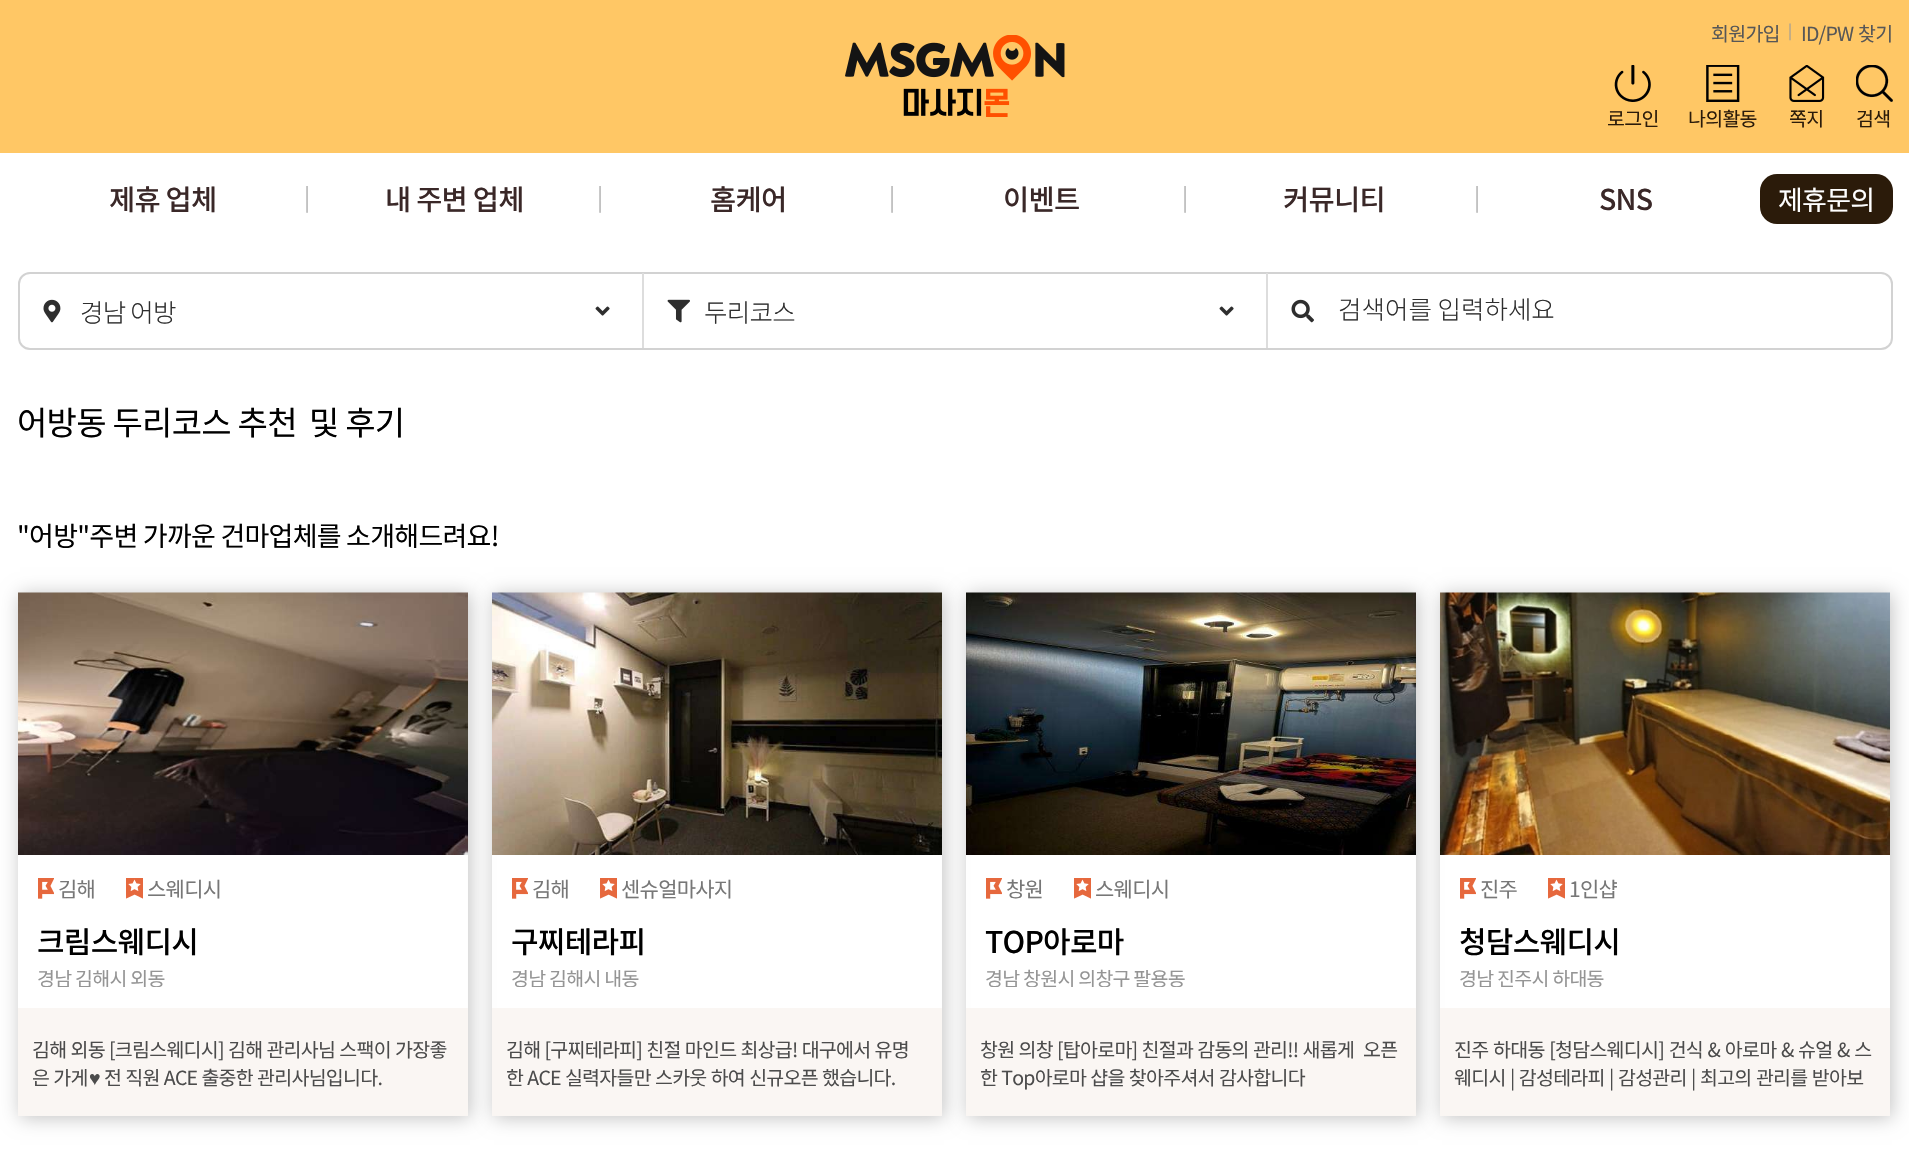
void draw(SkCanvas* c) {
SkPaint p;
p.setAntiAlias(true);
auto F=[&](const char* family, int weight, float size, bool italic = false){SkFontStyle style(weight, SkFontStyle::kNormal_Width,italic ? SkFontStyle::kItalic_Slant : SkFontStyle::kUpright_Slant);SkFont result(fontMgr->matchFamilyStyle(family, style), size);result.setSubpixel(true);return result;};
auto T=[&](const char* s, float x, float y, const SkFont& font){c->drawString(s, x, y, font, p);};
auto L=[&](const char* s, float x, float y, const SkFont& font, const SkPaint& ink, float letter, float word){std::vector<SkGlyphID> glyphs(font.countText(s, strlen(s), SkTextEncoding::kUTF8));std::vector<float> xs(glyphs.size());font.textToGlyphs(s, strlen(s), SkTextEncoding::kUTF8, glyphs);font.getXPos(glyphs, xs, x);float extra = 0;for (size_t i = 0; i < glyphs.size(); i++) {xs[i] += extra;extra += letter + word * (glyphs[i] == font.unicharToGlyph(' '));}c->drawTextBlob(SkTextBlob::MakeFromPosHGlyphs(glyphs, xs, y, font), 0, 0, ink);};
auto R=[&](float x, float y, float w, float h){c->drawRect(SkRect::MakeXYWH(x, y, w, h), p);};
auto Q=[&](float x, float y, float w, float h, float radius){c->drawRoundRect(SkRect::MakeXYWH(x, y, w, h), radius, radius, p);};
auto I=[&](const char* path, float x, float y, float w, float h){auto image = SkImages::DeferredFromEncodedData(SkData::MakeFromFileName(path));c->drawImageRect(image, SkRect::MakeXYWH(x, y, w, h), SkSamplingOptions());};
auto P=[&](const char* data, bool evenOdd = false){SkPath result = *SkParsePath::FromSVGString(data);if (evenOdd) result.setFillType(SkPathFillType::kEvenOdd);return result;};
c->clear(0xffffffff);
p.setColor(0xffffc765);
R(0,0,1909,153);
I("1.png",845,35,220,82);
auto f1 = F("Noto Sans KR",400,19.5);
p.setColor(0xff575757);
L("회원가입",1711,41,f1,p,-.75,0);
auto f2 = F("Noto Sans KR",400,15);
p.setColor(0xff9b9b9b);
L("|",1788,36,f2,p,-.75,0);
p.setColor(0xff575757);
L("ID/PW 찾기",1801,41,f1,p,-.75,1);
I("2.png",1614,65,37,37);
p.setColor(0xff2b1b0a);
L("로그인",1607,126,f1,p,-.75,0);
I("3.png",1706,65,34,37);
L("나의활동",1688,126,f1,p,-.75,0);
I("4.png",1789,65,36,37);
L("쪽지",1789,126,f1,p,-.75,0);
I("5.png",1856,65,37,37);
L("검색",1856,126,f1,p,-.75,0);
auto f3 = F("Noto Sans KR",500,28.5);
p.setColor(0xff3a2828);
L("제휴 업체",109,210,f3,p,-.75,0);
auto f4 = F("Noto Sans KR",300,24);
p.setColor(0xffa3a3a3);
L("|",304,206,f4,p,-.75,0);
p.setColor(0xff3a2828);
L("내 주변 업체",385,210,f3,p,-.75,0);
p.setColor(0xffa3a3a3);
L("|",597,206,f4,p,-.75,0);
p.setColor(0xff3a2828);
L("홈케어",710,210,f3,p,-.75,0);
p.setColor(0xffa3a3a3);
L("|",889,206,f4,p,-.75,0);
p.setColor(0xff3a2828);
L("이벤트",1003,210,f3,p,-.75,0);
p.setColor(0xffa3a3a3);
L("|",1182,206,f4,p,-.75,0);
p.setColor(0xff3a2828);
L("커뮤니티",1283,210,f3,p,-.75,0);
p.setColor(0xffa3a3a3);
L("|",1474,206,f4,p,-.75,0);
p.setColor(0xff3a2828);
L("SNS",1599,210,f3,p,-.75,0);
p.setColor(0xff2b1b0a);
Q(1760,174,133,50,17);
auto f5 = F("Noto Sans KR",400,27);
p.setColor(0xffffffff);
L("제휴문의",1778,210,f5,p,-.75,0);
p.setStroke(true);
p.setStrokeWidth(2);
p.setColor(0xffd2d2d2);
c->drawRoundRect(SkRect::MakeXYWH(19,273,1873,76),11,11,p);
p.setStroke(false);
p.setColor(0xffdddddd);
R(642,273,2,75);
I("6.png",43,299,18,24);
auto f6 = F("Noto Sans KR",300,25.5);
p.setColor(0xff2e2e2e);
L("경남 어방",80,322,f6,p,-.75,0);
I("7.png",595,306,15,10);
p.setColor(0xffdddddd);
R(1266,273,2,75);
I("8.png",667,299,23,24);
p.setColor(0xff2e2e2e);
L("두리코스",704,322,f6,p,-.75,0);
I("7.png",1219,306,15,10);
I("9.png",1291,299,23,24);
T("검색어를 입력하세요",1338,319,f6);
auto f7 = F("Noto Sans KR",400,33);
p.setColor(0xff000000);
L("어방동 두리코스 추천",17,435,f7,p,-.75,0);
L("및 후기",309,435,f7,p,-.75,0);
L("\"어방\"주변 가까운 건마업체를 소개해드려요!",17,546,f5,p,-.75,0);
c->save();
c->clipPath(P("M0 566h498v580h-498zm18 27h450v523h-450z",true),true);
p.setColor(0xffc3c3c3);
p.setMaskFilter(SkMaskFilter::MakeBlur(kNormal_SkBlurStyle, 9));
c->drawRect(SkRect::MakeXYWH(20,594,450,524),p);
p.setMaskFilter(nullptr);
c->restore();
c->save();
c->clipPath(P("M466 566h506v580h-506zm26 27h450v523h-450z",true),true);
p.setMaskFilter(SkMaskFilter::MakeBlur(kNormal_SkBlurStyle, 9));
c->drawRect(SkRect::MakeXYWH(494,594,450,524),p);
p.setMaskFilter(nullptr);
c->restore();
I("10.png",18,592,450,263);
I("11.png",38,878,16,21);
auto f8 = F("Noto Sans KR",400,21);
p.setColor(0xff777777);
L("김해",58,897,f8,p,-.75,0);
I("12.png",126,878,17,21);
L("스웨디시",147,897,f8,p,-.75,0);
auto f9 = F("Noto Sans KR",500,30);
p.setColor(0xff000000);
L("크림스웨디시",37,953,f9,p,-.75,0);
c->save();
c->clipRect(SkRect::MakeXYWH(38,968,426,19));
p.setColor(0xff959595);
L("경남 김해시 외동",37,986,f1,p,-.75,0);
c->restore();
p.setColor(0xfffaf6f3);
R(18,1008,450,108);
p.setColor(0xff4c4c4c);
L("김해 외동 [크림스웨디시] 김해 관리사님 스팩이 가장좋",32,1057,f1,p,-.75,.5);
L("은 가게",32,1085,f1,p,-.75,.5);
auto f10 = F("Liberation Sans",400,19.5);
L("♥",89,1085,f10,p,-.75,0);
L("전 직원 ACE 출중한 관리사님입니다.",104,1085,f1,p,-.75,.5);
c->save();
c->clipPath(P("M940 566h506v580h-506zm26 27h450v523h-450z",true),true);
p.setColor(0xffc3c3c3);
p.setMaskFilter(SkMaskFilter::MakeBlur(kNormal_SkBlurStyle, 9));
c->drawRect(SkRect::MakeXYWH(968,594,450,524),p);
p.setMaskFilter(nullptr);
c->restore();
I("13.png",492,592,450,263);
I("11.png",512,878,16,21);
p.setColor(0xff777777);
L("김해",532,897,f8,p,-.75,0);
I("12.png",600,878,17,21);
L("센슈얼마사지",621,897,f8,p,-.75,0);
p.setColor(0xff000000);
L("구찌테라피",511,953,f9,p,-.75,0);
c->save();
c->clipRect(SkRect::MakeXYWH(512,968,426,19));
p.setColor(0xff959595);
L("경남 김해시 내동",511,986,f1,p,-.75,0);
c->restore();
p.setColor(0xfffaf6f3);
R(492,1008,450,108);
p.setColor(0xff4c4c4c);
L("김해 [구찌테라피] 친절 마인드 최상급! 대구에서 유명",506,1057,f1,p,-.75,.5);
L("한 ACE 실력자들만 스카웃 하여 신규오픈 했습니다.",506,1085,f1,p,-.75,.5);
c->save();
c->clipPath(P("M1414 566h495v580h-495zm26 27h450v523h-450z",true),true);
p.setColor(0xffc3c3c3);
p.setMaskFilter(SkMaskFilter::MakeBlur(kNormal_SkBlurStyle, 9));
c->drawRect(SkRect::MakeXYWH(1442,594,450,524),p);
p.setMaskFilter(nullptr);
c->restore();
I("14.png",966,592,450,263);
I("11.png",986,878,16,21);
p.setColor(0xff777777);
L("창원",1006,897,f8,p,-.75,0);
I("12.png",1074,878,17,21);
L("스웨디시",1095,897,f8,p,-.75,0);
p.setColor(0xff000000);
L("TOP아로마",985,953,f9,p,-.75,0);
c->save();
c->clipRect(SkRect::MakeXYWH(986,968,426,19));
p.setColor(0xff959595);
L("경남 창원시 의창구 팔용동",985,986,f1,p,-.75,0);
c->restore();
p.setColor(0xfffaf6f3);
R(966,1008,450,108);
p.setColor(0xff4c4c4c);
L("창원 의창 [탑아로마] 친절과 감동의 관리!! 새롭게",980,1057,f1,p,-.75,.5);
L("오픈",1363,1057,f1,p,-.75,.5);
L("한 Top아로마 샵을 찾아주셔서 감사합니다",980,1085,f1,p,-.75,.5);
I("15.png",1440,592,450,263);
I("11.png",1460,878,16,21);
p.setColor(0xff777777);
L("진주",1480,897,f8,p,-.75,0);
I("12.png",1548,878,17,21);
L("1인샵",1569,897,f8,p,-.75,0);
p.setColor(0xff000000);
L("청담스웨디시",1459,953,f9,p,-.75,0);
c->save();
c->clipRect(SkRect::MakeXYWH(1460,968,426,19));
p.setColor(0xff959595);
L("경남 진주시 하대동",1459,986,f1,p,-.75,0);
c->restore();
p.setColor(0xfffaf6f3);
R(1440,1008,450,108);
p.setColor(0xff4c4c4c);
L("진주 하대동 [청담스웨디시] 건식 & 아로마 & 슈얼 & 스",1454,1057,f1,p,-.75,1);
L("웨디시 | 감성테라피 | 감성관리 | 최고의 관리를 받아보",1454,1085,f1,p,-.75,.75);
}
